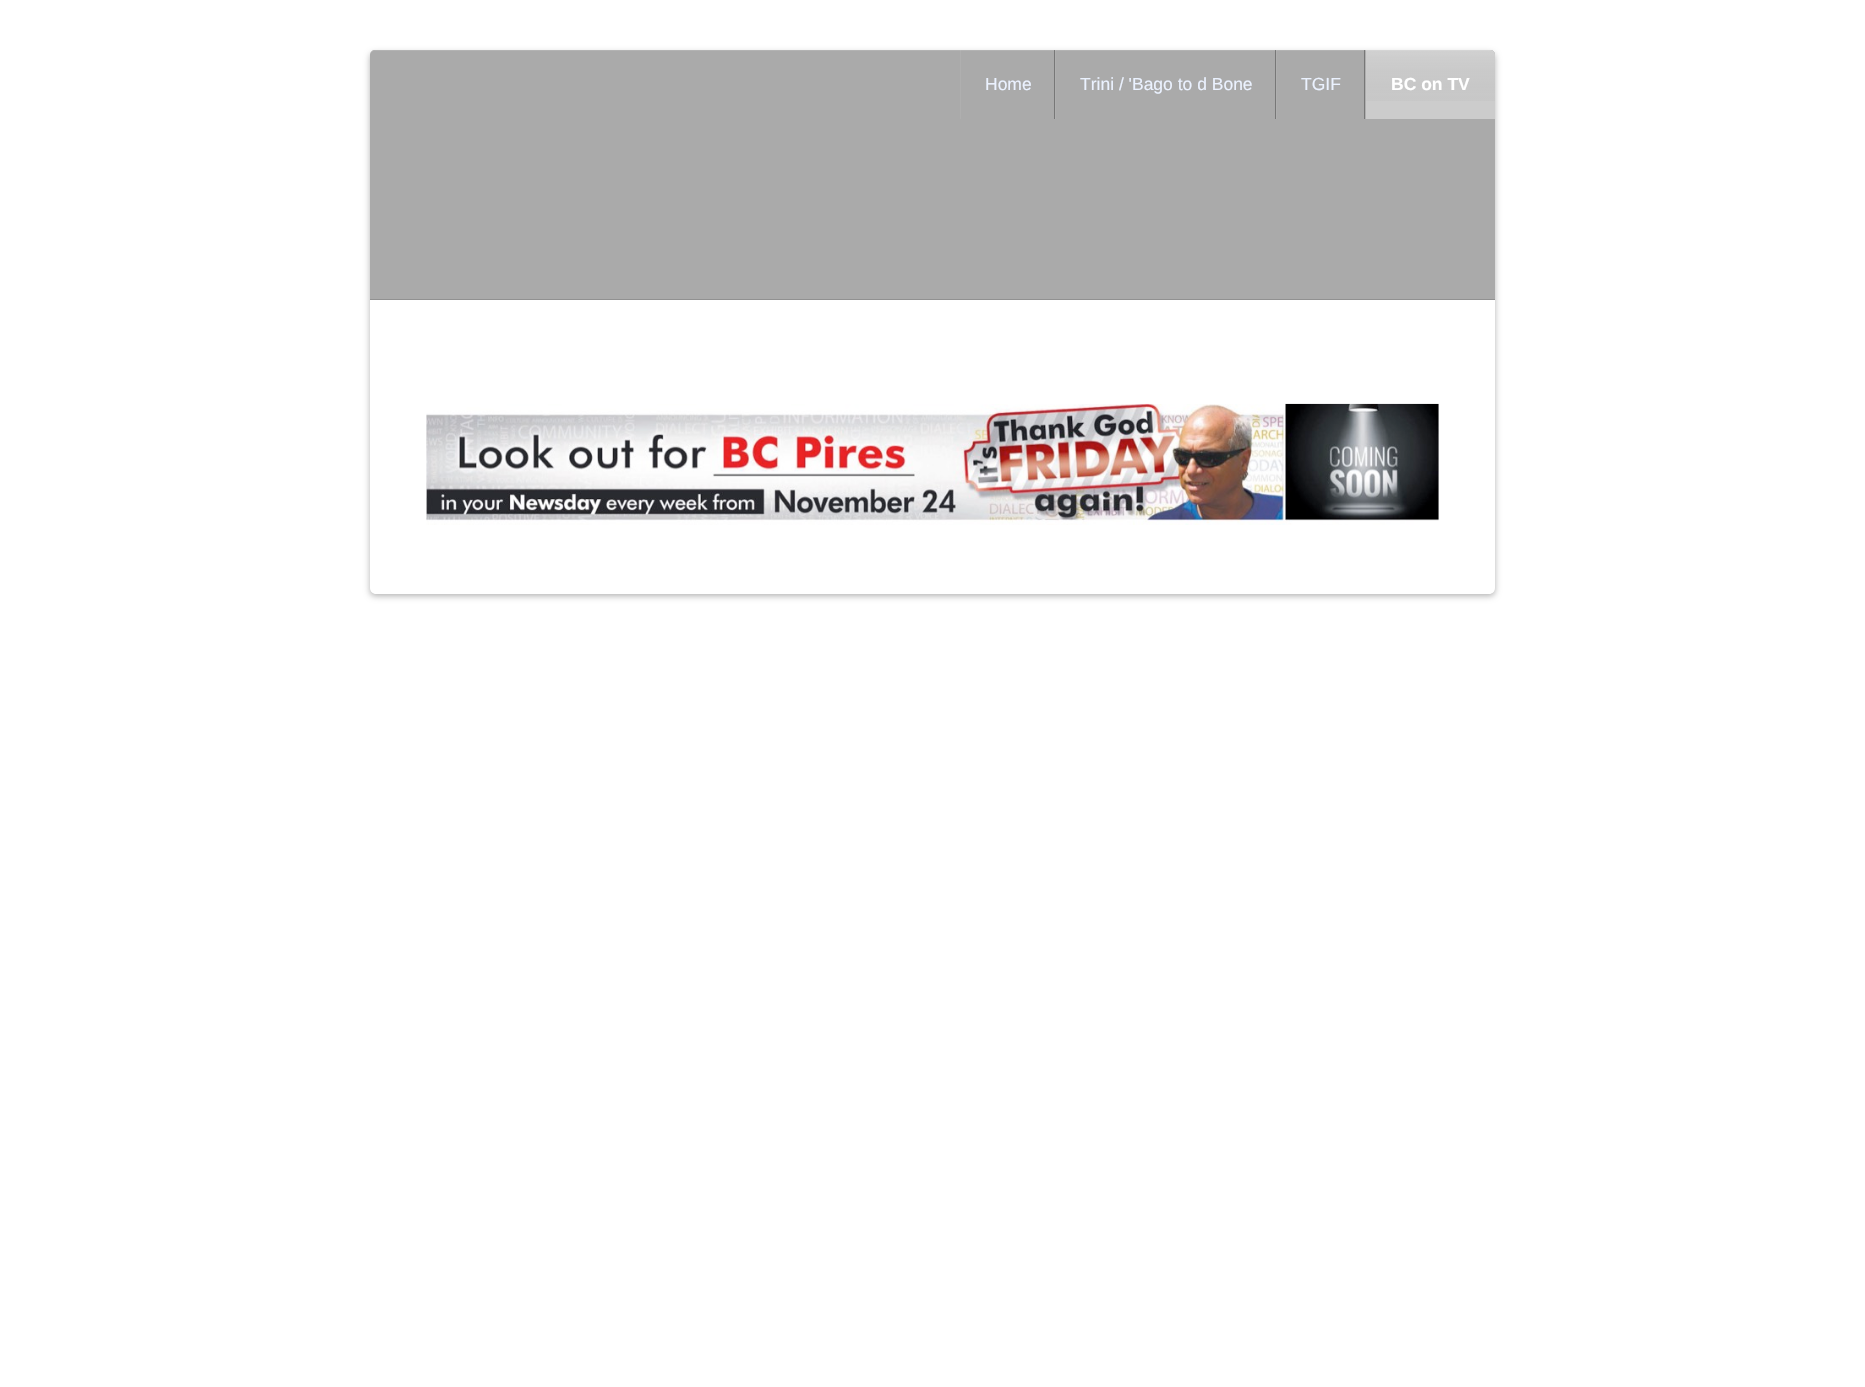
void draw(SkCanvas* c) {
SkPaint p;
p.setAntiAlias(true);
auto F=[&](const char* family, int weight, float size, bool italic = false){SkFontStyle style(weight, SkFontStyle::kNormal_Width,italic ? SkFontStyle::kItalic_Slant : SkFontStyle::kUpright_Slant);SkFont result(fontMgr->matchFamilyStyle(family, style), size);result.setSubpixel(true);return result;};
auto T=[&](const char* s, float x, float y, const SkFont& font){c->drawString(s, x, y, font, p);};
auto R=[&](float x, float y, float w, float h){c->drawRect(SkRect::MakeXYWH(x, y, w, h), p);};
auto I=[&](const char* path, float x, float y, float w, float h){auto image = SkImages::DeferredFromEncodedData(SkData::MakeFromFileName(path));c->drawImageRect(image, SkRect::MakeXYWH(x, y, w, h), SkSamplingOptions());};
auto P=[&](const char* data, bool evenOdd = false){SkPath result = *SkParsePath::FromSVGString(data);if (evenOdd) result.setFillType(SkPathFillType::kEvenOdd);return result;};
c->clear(0xffffffff);
p.setColor(0x4d000000);
p.setMaskFilter(SkMaskFilter::MakeBlur(kNormal_SkBlurStyle, 3));
c->drawRoundRect(SkRect::MakeXYWH(370,53,1125,543),5,5,p);
p.setMaskFilter(nullptr);
p.setColor(0xffaaaaaa);
c->drawPath(P("M375 50h1115c3 0 5 2 5 5v245h-1125v-245c0-3 2-5 5-5z"),p);
p.setColor(0xff919191);
R(370,299,1125,1);
p.setColor(0x1affffff);
c->drawPath(P("M375 51c-3 0-5 2-5 5c0-3 2-6 5-6h1115c3 0 5 3 5 6c0-3-2-5-5-5z"),p);
p.setColor(0x4d000000);
R(1054,50,1,69);
p.setColor(0x0fffffff);
R(960,50,1,69);
auto f1 = F("Liberation Sans",400,17.5);
p.setColor(0xffebf2ff);
T("Home",985,90,f1);
p.setColor(0x4d000000);
R(1275,50,1,69);
p.setColor(0x0fffffff);
R(1055,50,1,69);
p.setColor(0xffebf2ff);
T("Trini / 'Bago to d Bone",1080,90,f1);
p.setColor(0x4d000000);
R(1364,50,1,69);
p.setColor(0x0fffffff);
R(1276,50,1,69);
p.setColor(0xffebf2ff);
T("TGIF",1301,90,f1);
p.setColor(0x0fffffff);
R(1365,50,1,69);
p.setColor(0xffcccccc);
c->drawPath(P("M1366 50h124c3 0 5 2 5 5v64h-129z"),p);
I("1.png",1366,50,129,51);
p.setColor(0x1affffff);
c->drawPath(P("M1366 50v1h124c3 0 5 2 5 5c0-3-2-6-5-6z"),p);
auto f2 = F("Liberation Sans",700,17.5);
p.setColor(0xffffffff);
T("BC on TV",1391,90,f2);
c->save();
c->clipPath(P("M375 50h1115c3 0 5 2 5 5v534c0 3-2 5-5 5h-1115c-3 0-5-2-5-5v-534c0-3 2-5 5-5z"),true);
c->drawPath(P("M370 300h1125v288c0 3.5-2.5 6-6 6h-1113c-3.5 0-6-2.5-6-6z"),p);
c->restore();
I("2.png",426,403,1013,122);
}
